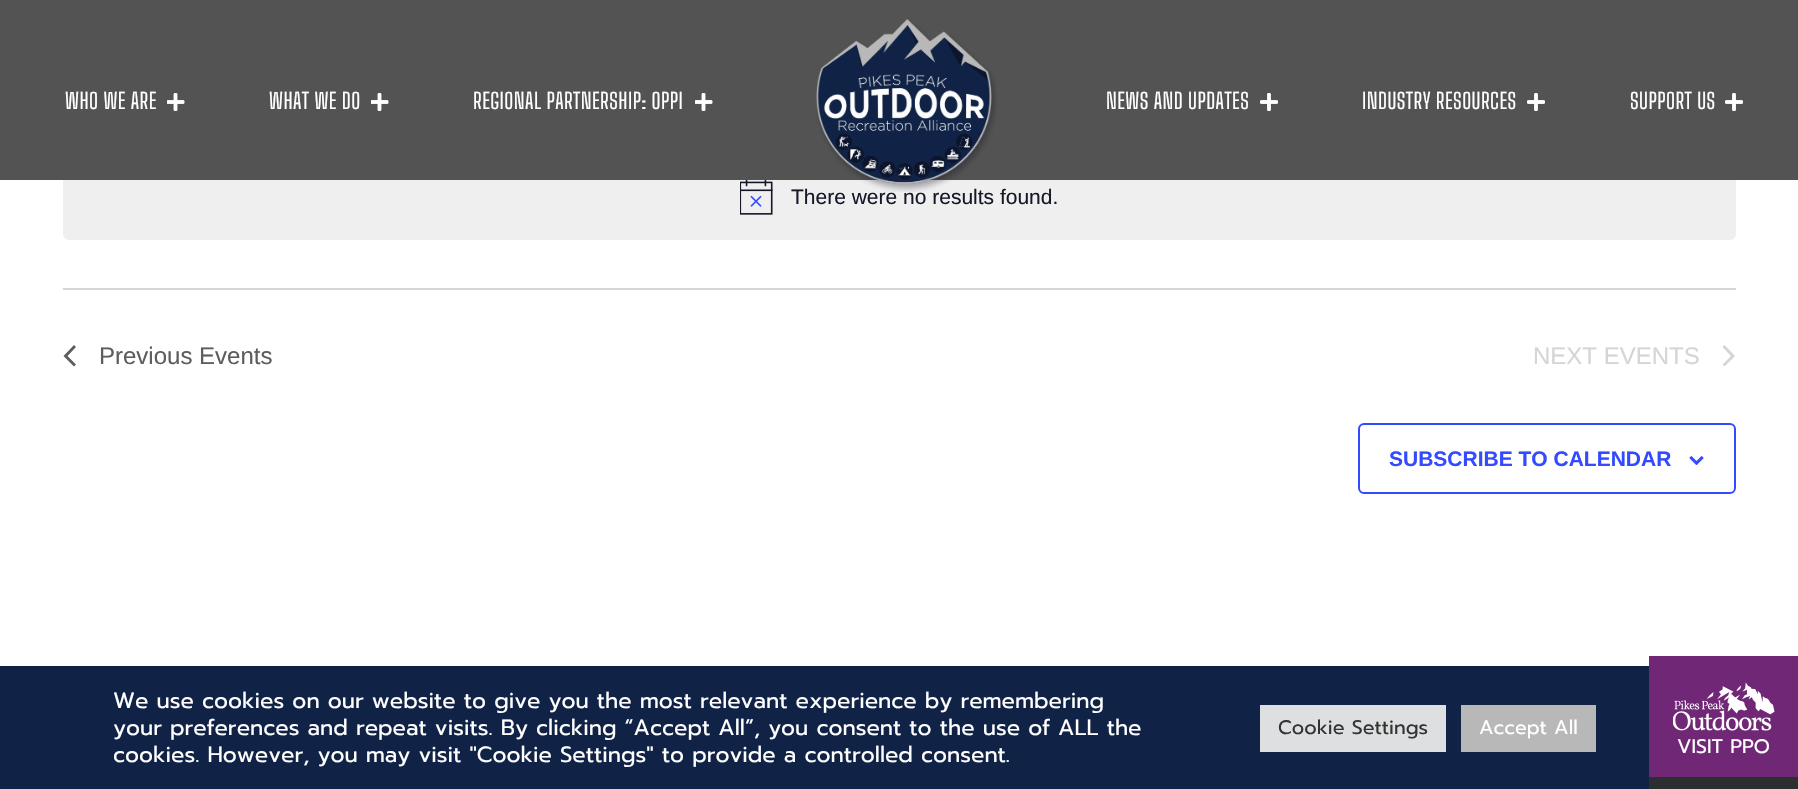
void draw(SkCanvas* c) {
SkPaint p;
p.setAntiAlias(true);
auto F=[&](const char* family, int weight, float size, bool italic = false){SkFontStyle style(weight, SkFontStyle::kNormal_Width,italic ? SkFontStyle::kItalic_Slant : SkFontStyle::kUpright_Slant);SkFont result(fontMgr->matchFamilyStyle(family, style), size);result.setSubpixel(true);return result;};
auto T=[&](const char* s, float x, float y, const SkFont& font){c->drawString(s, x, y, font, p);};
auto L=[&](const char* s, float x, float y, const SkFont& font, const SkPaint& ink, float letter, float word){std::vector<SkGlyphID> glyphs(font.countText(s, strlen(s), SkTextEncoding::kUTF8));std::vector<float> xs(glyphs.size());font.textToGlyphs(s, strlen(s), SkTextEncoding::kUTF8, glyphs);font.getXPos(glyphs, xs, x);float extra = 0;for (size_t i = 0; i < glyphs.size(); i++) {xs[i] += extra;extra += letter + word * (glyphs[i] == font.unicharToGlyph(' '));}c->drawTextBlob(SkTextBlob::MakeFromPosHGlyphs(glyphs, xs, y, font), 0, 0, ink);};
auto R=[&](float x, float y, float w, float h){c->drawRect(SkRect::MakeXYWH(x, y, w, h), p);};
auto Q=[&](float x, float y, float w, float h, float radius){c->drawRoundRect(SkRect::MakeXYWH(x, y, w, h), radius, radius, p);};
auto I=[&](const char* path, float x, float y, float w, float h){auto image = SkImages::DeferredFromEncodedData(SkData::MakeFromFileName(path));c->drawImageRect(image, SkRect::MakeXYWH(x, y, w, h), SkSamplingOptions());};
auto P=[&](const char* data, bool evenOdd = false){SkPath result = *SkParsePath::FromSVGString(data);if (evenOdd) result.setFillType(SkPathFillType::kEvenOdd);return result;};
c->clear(0xffffffff);
p.setColor(0xffefeff0);
Q(63,155,1673,85,6);
p.setColor(0xff535353);
R(0,0,1798,180);
auto f1 = F("Big Shoulders Text",400,21.5);
p.setColor(0xffffffff);
L("WHO WE ARE",65,109,f1,p,.45,0);
I("1.png",167,93,18,18);
L("WHAT WE DO",269,109,f1,p,.45,0);
I("1.png",371,93,18,18);
L("REGIONAL PARTNERSHIP: OPPI",473,109,f1,p,.45,0);
I("1.png",695,93,18,18);
auto f2 = F("Liberation Sans",400,21);
p.setColor(0xff141827);
T("There were no results found.",791,204,f2);
I("2.png",816,19,181,173);
p.setColor(0xffffffff);
L("NEWS AND UPDATES",1106,109,f1,p,.45,0);
I("3.png",1260,93,18,18);
L("INDUSTRY RESOURCES",1362,109,f1,p,.45,0);
I("3.png",1527,93,18,18);
L("SUPPORT US",1630,109,f1,p,.45,0);
I("3.png",1725,93,18,18);
I("4.png",740,180,33,35);
p.setColor(0xffd5d5d5);
R(63,288,1673,2);
p.setColor(0xff5d5d5d);
c->drawPath(P("M76 364.5l-2 2l-10.5-10.5l10.5-11l2 2l-8.5 9z"),p);
auto f3 = F("Liberation Sans",400,24);
T("Previous Events",99,364,f3);
p.setColor(0xffd5d5d5);
T("NEXT EVENTS",1533,364,f3);
c->drawPath(P("M1722.5 347l2-2l10.5 11l-10.5 10.5l-2-2l8.5-8.5z"),p);
p.setStroke(true);
p.setStrokeWidth(2);
p.setColor(0xff334aff);
c->drawRoundRect(SkRect::MakeXYWH(1359,424,376,69),5,5,p);
auto f4 = F("Liberation Sans",700,21);
p.setStroke(false);
T("SUBSCRIBE TO CALENDAR",1389,466,f4);
I("5.png",1689,456,15,9);
p.setColor(0xff102346);
R(0,666,1649,123);
auto f5 = F("Prompt",400,22);
p.setColor(0xffffffff);
T("We use cookies on our website to give you the most relevant experience by remembering",113,708,f5);
T("your preferences and repeat visits. By clicking “Accept All”, you consent to the use of ALL the",113,735,f5);
T("cookies. However, you may visit \"Cookie Settings\" to provide a controlled consent.",113,762,f5);
p.setColor(0xffdedfe0);
R(1260,705,186,47);
auto f6 = F("Prompt",400,19.5);
p.setColor(0xff333333);
T("Cookie Settings",1278,734,f6);
p.setColor(0xffb8b8b8);
R(1461,705,135,47);
p.setColor(0xffffffff);
T("Accept All",1479,734,f6);
p.setColor(0xff702876);
R(1649,656,149,121);
p.setColor(0xff2b2f2f);
R(1649,777,149,12);
I("6.png",1673,682,102,49);
p.setColor(0xffffffff);
T("VISIT PPO",1677,753,f6);
}
